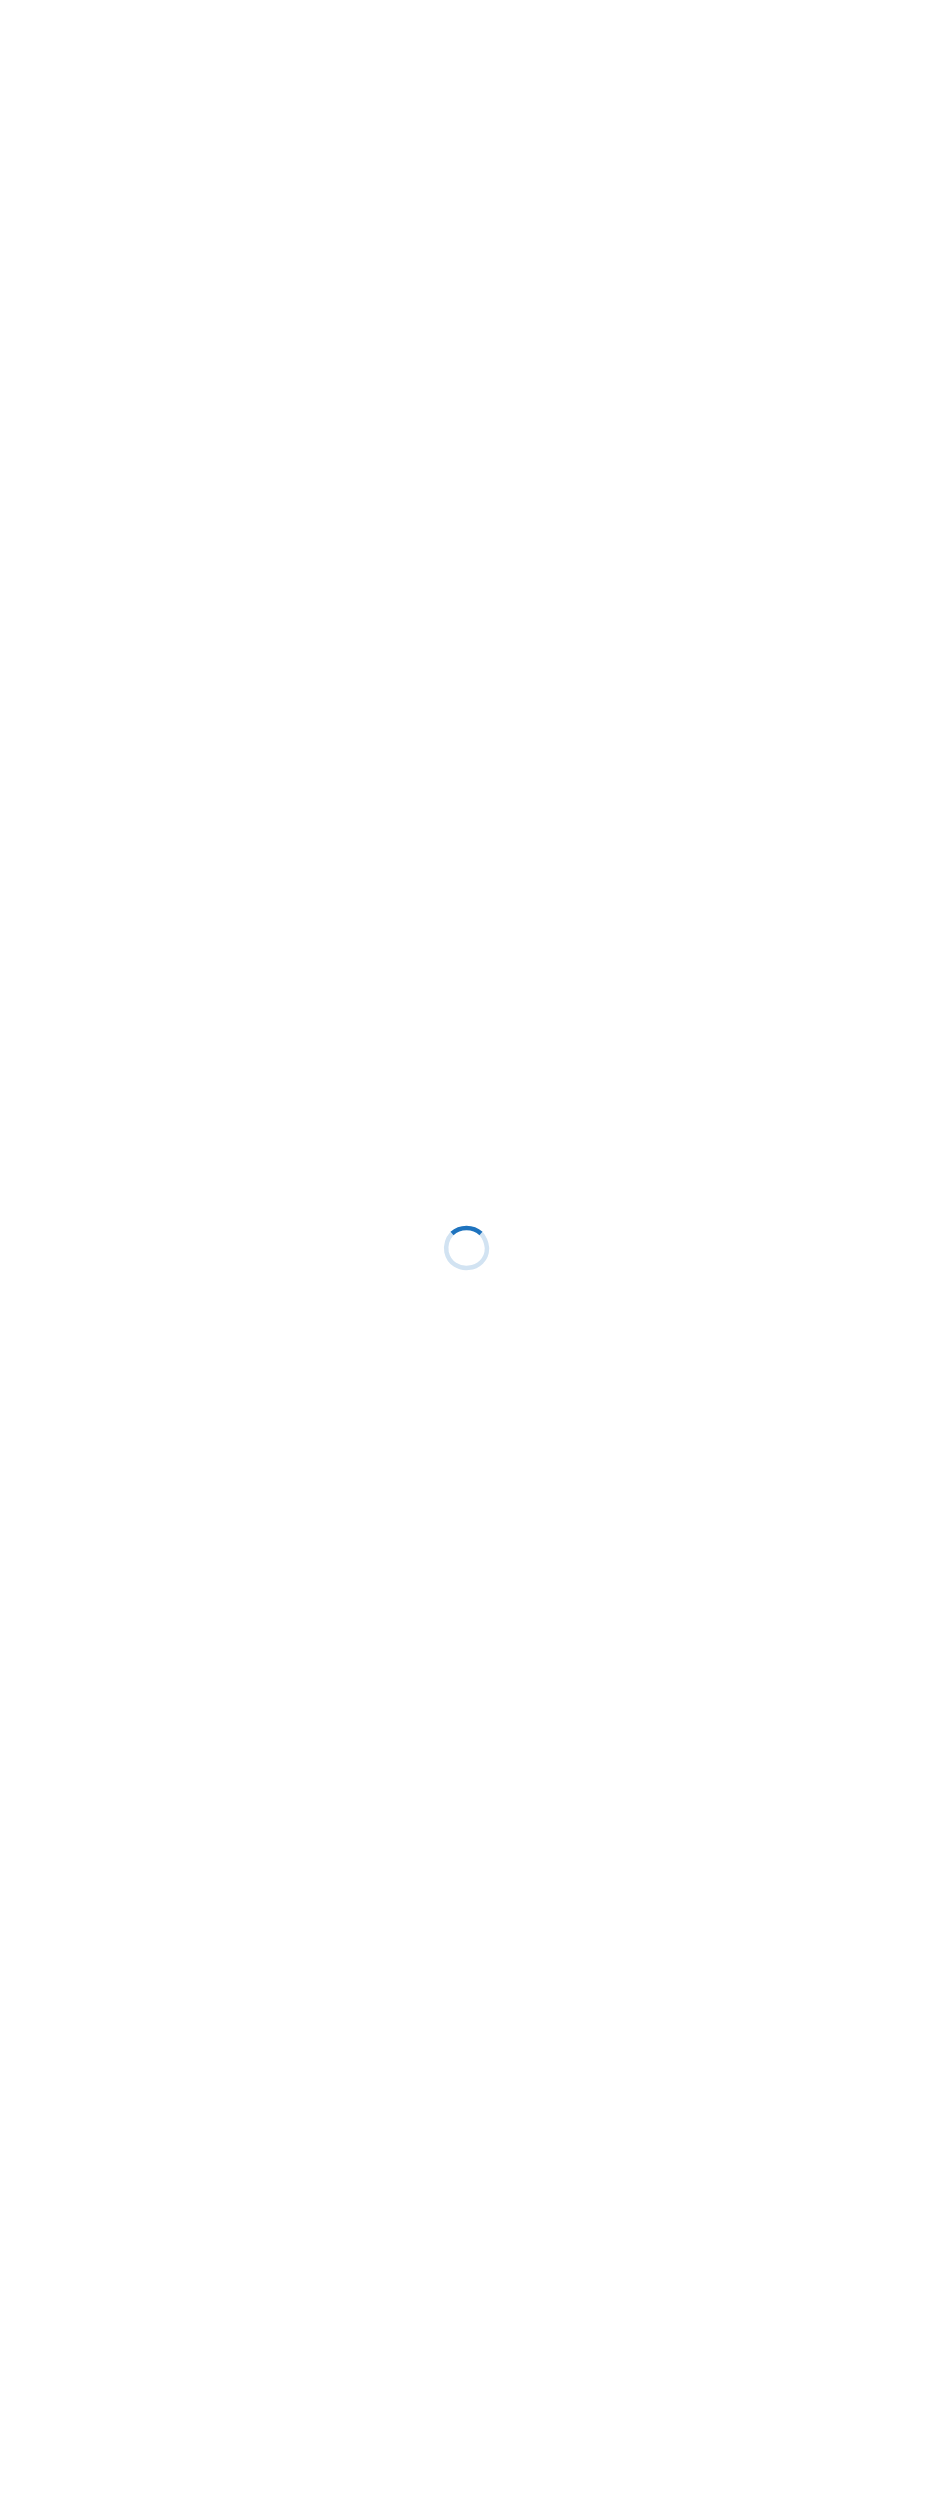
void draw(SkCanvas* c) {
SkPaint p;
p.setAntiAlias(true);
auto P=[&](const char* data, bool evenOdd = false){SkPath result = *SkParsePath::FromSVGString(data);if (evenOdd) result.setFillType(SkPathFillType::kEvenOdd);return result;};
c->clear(0xffffffff);
p.setStroke(true);
p.setStrokeWidth(4.5);
p.setColor(0xff1e73be);
c->drawPath(P("M452 1233.5c8-7.5 21-7.5 29 0"),p);
p.setColor(0x331e73be);
c->drawPath(P("M481 1233.5c3.5 4 5.5 9 6 14.5c0 24-35.5 27.5-40.5 4c-1-6.5 1-13.5 5.5-18.5"),p);
}
